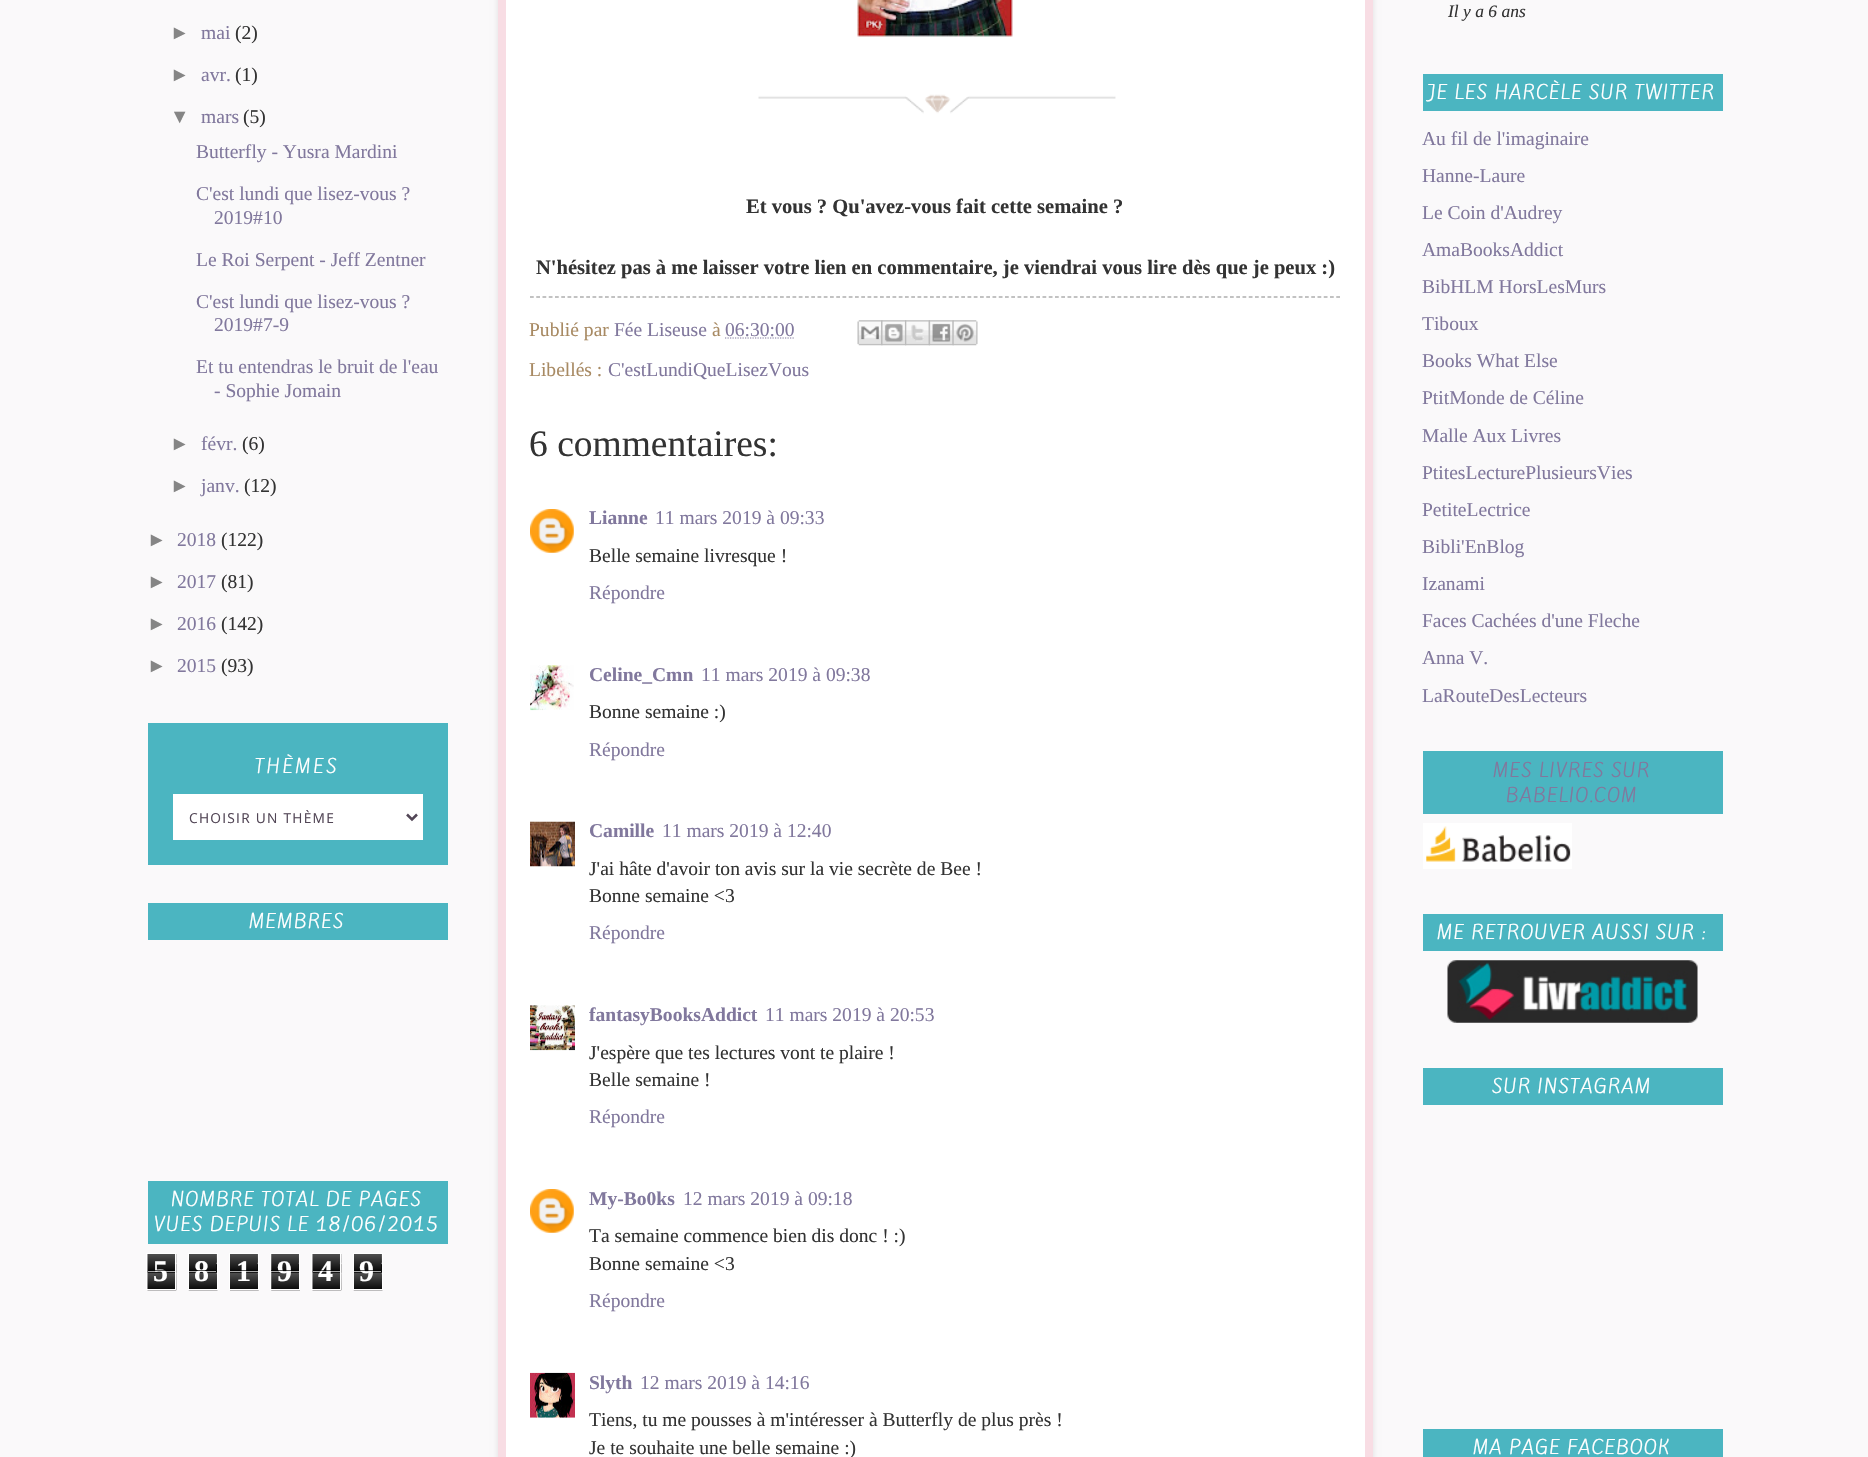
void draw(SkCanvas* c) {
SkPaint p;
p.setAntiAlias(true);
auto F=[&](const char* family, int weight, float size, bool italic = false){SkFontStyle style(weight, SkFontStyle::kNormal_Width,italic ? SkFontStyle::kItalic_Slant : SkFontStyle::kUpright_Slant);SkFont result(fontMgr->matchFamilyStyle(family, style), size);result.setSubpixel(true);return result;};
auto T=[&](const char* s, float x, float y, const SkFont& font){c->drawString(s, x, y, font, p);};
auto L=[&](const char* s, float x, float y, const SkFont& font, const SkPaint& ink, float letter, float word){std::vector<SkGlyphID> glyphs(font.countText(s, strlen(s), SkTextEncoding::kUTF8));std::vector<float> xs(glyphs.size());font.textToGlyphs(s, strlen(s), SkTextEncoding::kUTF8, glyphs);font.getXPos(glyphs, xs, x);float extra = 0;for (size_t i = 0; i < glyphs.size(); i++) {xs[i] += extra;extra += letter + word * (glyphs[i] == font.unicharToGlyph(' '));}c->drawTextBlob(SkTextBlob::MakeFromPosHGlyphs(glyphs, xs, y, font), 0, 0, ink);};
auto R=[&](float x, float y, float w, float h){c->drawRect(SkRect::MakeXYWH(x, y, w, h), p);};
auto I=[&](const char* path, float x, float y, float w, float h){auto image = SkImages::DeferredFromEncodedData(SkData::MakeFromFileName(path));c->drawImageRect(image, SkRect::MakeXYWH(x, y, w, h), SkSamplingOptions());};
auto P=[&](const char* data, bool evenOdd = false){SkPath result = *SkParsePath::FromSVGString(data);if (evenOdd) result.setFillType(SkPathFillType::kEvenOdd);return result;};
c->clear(0xfffaf9fa);
auto f1 = F("Liberation Sans",400,19.55);
p.setColor(0xff858585);
T("►",170,39,f1);
auto f2 = F("Liberation Serif",400,19.55);
p.setColor(0xff81789d);
T("mai",201,39,f2);
p.setColor(0xff333333);
T("(2)",235,39,f2);
p.setColor(0xff858585);
T("►",170,81,f1);
p.setColor(0xff81789d);
T("avr.",201,81,f2);
p.setColor(0xff333333);
T("(1)",235,81,f2);
p.setColor(0xff858585);
T("▼",170,123,f1);
p.setColor(0xff81789d);
T("mars",201,123,f2);
p.setColor(0xff333333);
T("(5)",243,123,f2);
p.setColor(0xff81789d);
T("Butterfly - Yusra Mardini",196,158,f2);
T("C'est lundi que lisez-vous ?",196,200,f2);
T("2019#10",214,224,f2);
T("Le Roi Serpent - Jeff Zentner",196,266,f2);
T("C'est lundi que lisez-vous ?",196,308,f2);
T("2019#7-9",214,331,f2);
T("Et tu entendras le bruit de l'eau",196,373,f2);
T("- Sophie Jomain",214,397,f2);
p.setColor(0xff858585);
T("►",170,450,f1);
p.setColor(0xff81789d);
T("févr.",201,450,f2);
p.setColor(0xff333333);
T("(6)",242,450,f2);
p.setColor(0xff858585);
T("►",170,492,f1);
p.setColor(0xff81789d);
T("janv.",201,492,f2);
p.setColor(0xff333333);
T("(12)",244,492,f2);
p.setColor(0xff858585);
T("►",147,546,f1);
p.setColor(0xff81789d);
T("2018",177,546,f2);
p.setColor(0xff333333);
T("(122)",221,546,f2);
p.setColor(0xff858585);
T("►",147,588,f1);
p.setColor(0xff81789d);
T("2017",177,588,f2);
p.setColor(0xff333333);
T("(81)",221,588,f2);
p.setColor(0xff858585);
T("►",147,630,f1);
p.setColor(0xff81789d);
T("2016",177,630,f2);
p.setColor(0xff333333);
T("(142)",221,630,f2);
p.setColor(0xff858585);
T("►",147,672,f1);
p.setColor(0xff81789d);
T("2015",177,672,f2);
p.setColor(0xff333333);
T("(93)",221,672,f2);
p.setColor(0xff4bb5c1);
R(148,723,300,142);
auto f3 = F("Kite One",400,17.5);
p.setColor(0xffffffff);
L("THÈMES",255,773,f3,p,2.5,0);
R(173,794,250,46);
p.setStroke(true);
p.setStrokeWidth(2.5);
p.setColor(0xff524656);
c->drawPath(P("M407 814.5l5 5l5-5"),p);
auto f4 = F("Open Sans",400,13.75);
p.setStroke(false);
L("CHOISIR UN THÈME",189,823,f4,p,1.25,0);
p.setColor(0xff4bb5c1);
R(148,903,300,37);
p.setColor(0xffffffff);
L("MEMBRES",249,928,f3,p,1.25,0);
p.setColor(0xff4bb5c1);
R(148,1181,300,63);
p.setColor(0xffffffff);
L("NOMBRE TOTAL DE PAGES",171,1206,f3,p,1.25,0);
L("VUES DEPUIS LE 18/06/2015",154,1231,f3,p,1.25,0);
I("1.png",147,1254,30,37);
p.setStroke(true);
p.setStrokeWidth(1);
c->drawRect(SkRect::MakeXYWH(146.5,1253.5,29,36),p);
auto f5 = F("Liberation Serif",700,30);
p.setStroke(false);
T("5",153,1281,f5);
p.setColor(0xa6000000);
R(148,1270,27,1);
p.setColor(0xa6ffffff);
R(148,1271,27,1);
I("2.png",188,1254,30,37);
p.setStroke(true);
p.setColor(0xffffffff);
c->drawRect(SkRect::MakeXYWH(188.5,1253.5,29,36),p);
p.setStroke(false);
T("8",194,1281,f5);
p.setColor(0xa6000000);
R(189,1270,27,1);
p.setColor(0xa6ffffff);
R(189,1271,27,1);
I("3.png",230,1254,29,37);
p.setStroke(true);
p.setColor(0xffffffff);
c->drawRect(SkRect::MakeXYWH(229.5,1253.5,29,36),p);
p.setStroke(false);
T("1",236,1281,f5);
p.setColor(0xa6000000);
R(230,1270,28,1);
p.setColor(0xa6ffffff);
R(230,1271,28,1);
I("4.png",271,1254,29,37);
p.setStroke(true);
p.setColor(0xffffffff);
c->drawRect(SkRect::MakeXYWH(270.5,1253.5,29,36),p);
p.setStroke(false);
T("9",277,1281,f5);
p.setColor(0xa6000000);
R(271,1270,28,1);
p.setColor(0xa6ffffff);
R(271,1271,28,1);
I("1.png",312,1254,30,37);
p.setStroke(true);
p.setColor(0xffffffff);
c->drawRect(SkRect::MakeXYWH(311.5,1253.5,29,36),p);
p.setStroke(false);
T("4",318,1281,f5);
p.setColor(0xa6000000);
R(313,1270,27,1);
p.setColor(0xa6ffffff);
R(313,1271,27,1);
I("2.png",353,1254,30,37);
p.setStroke(true);
p.setColor(0xffffffff);
c->drawRect(SkRect::MakeXYWH(353.5,1253.5,29,36),p);
p.setStroke(false);
T("9",359,1281,f5);
p.setColor(0xa6000000);
R(354,1270,27,1);
p.setColor(0xa6ffffff);
R(354,1271,27,1);
p.setColor(0x1a000000);
p.setMaskFilter(SkMaskFilter::MakeBlur(kNormal_SkBlurStyle, 3));
c->drawRect(SkRect::MakeXYWH(498,-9,875,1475),p);
p.setMaskFilter(nullptr);
p.setColor(0xffffffff);
c->drawRect(SkRect::MakeXYWH(502,-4,867,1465),p);
p.setStroke(true);
p.setStrokeWidth(8);
p.setColor(0xfff8dde4);
c->drawRect(SkRect::MakeXYWH(502,-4,867,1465),p);
I("5.png",857,0,156,37);
I("6.png",758,94,358,20);
auto f6 = F("Liberation Serif",700,20.55);
p.setStroke(false);
p.setColor(0xff333333);
T("Et vous ? Qu'avez-vous fait cette semaine ?",746,213,f6);
T("N'hésitez pas à me laisser votre lien en commentaire, je viendrai vous lire dès que je peux :)",536,274,f6);
p.setStroke(true);
p.setStrokeWidth(1.2);
p.setColor(0xff858585);
p.setPathEffect(SkDashPathEffect::Make({{3.75f,2.5f}}, 0));
c->drawPath(P("M530 297h810"),p);
p.setPathEffect(nullptr);
p.setStroke(false);
p.setColor(0xffa88a63);
T("Publié par",529,336,f2);
p.setColor(0xff81789d);
T("Fée Liseuse",614,336,f2);
p.setColor(0xffa88a63);
T("à",712,336,f2);
p.setColor(0xff81789d);
T("06:30:00",725,336,f2);
p.setStroke(true);
p.setPathEffect(SkDashPathEffect::Make({{1.25f,1.25f}}, 0));
c->drawPath(P("M725 338h69.5"),p);
p.setPathEffect(nullptr);
I("7.png",857,320,26,26);
I("8.png",881,320,26,26);
I("9.png",905,320,25,26);
I("10.png",928,320,26,26);
I("11.png",952,320,26,26);
p.setStroke(false);
p.setColor(0xffa88a63);
T("Libellés :",529,376,f2);
p.setColor(0xff81789d);
T("C'estLundiQueLisezVous",608,376,f2);
auto f7 = F("Liberation Serif",400,37.5);
p.setColor(0xff333333);
T("6 commentaires:",529,456,f7);
I("12.png",530,509,44,44);
auto f8 = F("Liberation Serif",700,19.55);
p.setColor(0xff81789d);
T("Lianne",589,524,f8);
T("11 mars 2019 à 09:33",655,524,f2);
p.setColor(0xff333333);
T("Belle semaine livresque !",589,562,f2);
p.setColor(0xff81789d);
T("Répondre",589,599,f2);
I("13.png",530,665,44,46);
T("Celine_Cmn",589,681,f8);
T("11 mars 2019 à 09:38",701,681,f2);
p.setColor(0xff333333);
T("Bonne semaine :)",589,718,f2);
p.setColor(0xff81789d);
T("Répondre",589,756,f2);
I("14.png",530,821,45,46);
T("Camille",589,837,f8);
T("11 mars 2019 à 12:40",662,837,f2);
p.setColor(0xff333333);
T("J'ai hâte d'avoir ton avis sur la vie secrète de Bee !",589,875,f2);
T("Bonne semaine <3",589,902,f2);
p.setColor(0xff81789d);
T("Répondre",589,939,f2);
I("15.png",530,1005,45,46);
T("fantasyBooksAddict",589,1021,f8);
T("11 mars 2019 à 20:53",765,1021,f2);
p.setColor(0xff333333);
T("J'espère que tes lectures vont te plaire !",589,1059,f2);
T("Belle semaine !",589,1086,f2);
p.setColor(0xff81789d);
T("Répondre",589,1123,f2);
I("12.png",530,1189,44,44);
T("My-Bo0ks",589,1205,f8);
T("12 mars 2019 à 09:18",683,1205,f2);
p.setColor(0xff333333);
T("Ta semaine commence bien dis donc ! :)",589,1242,f2);
T("Bonne semaine <3",589,1270,f2);
p.setColor(0xff81789d);
T("Répondre",589,1307,f2);
I("16.png",530,1372,45,46);
T("Slyth",589,1389,f8);
T("12 mars 2019 à 14:16",640,1389,f2);
p.setColor(0xff333333);
T("Tiens, tu me pousses à m'intéresser à Butterfly de plus près !",589,1426,f2);
T("Je te souhaite une belle semaine :)",589,1454,f2);
auto f9 = F("Liberation Serif",400,17.5,true);
T("Il y a 6 ans",1448,17,f9);
p.setColor(0xff4bb5c1);
R(1423,74,300,37);
p.setColor(0xffffffff);
L("JE LES HARCÈLE SUR TWITTER",1428,99,f3,p,1.25,0);
p.setColor(0xff81789d);
T("Au fil de l'imaginaire",1422,145,f2);
T("Hanne-Laure",1422,182,f2);
T("Le Coin d'Audrey",1422,219,f2);
T("AmaBooksAddict",1422,256,f2);
T("BibHLM HorsLesMurs",1422,293,f2);
T("Tiboux",1422,330,f2);
T("Books What Else",1422,367,f2);
T("PtitMonde de Céline",1422,404,f2);
T("Malle Aux Livres",1422,442,f2);
T("PtitesLecturePlusieursVies",1422,479,f2);
T("PetiteLectrice",1422,516,f2);
T("Bibli'EnBlog",1422,553,f2);
T("Izanami",1422,590,f2);
T("Faces Cachées d'une Fleche",1422,627,f2);
T("Anna V.",1422,664,f2);
T("LaRouteDesLecteurs",1422,702,f2);
p.setColor(0xff4bb5c1);
R(1423,751,300,63);
p.setColor(0xff81789d);
L("MES LIVRES SUR",1493,777,f3,p,1.25,0);
L("BABELIO.COM",1506,802,f3,p,1.25,0);
I("17.png",1423,823,149,46);
p.setColor(0xff4bb5c1);
R(1423,914,300,37);
p.setColor(0xffffffff);
L("ME RETROUVER AUSSI SUR :",1437,939,f3,p,1.25,0);
I("18.png",1447,960,251,63);
p.setColor(0xff4bb5c1);
R(1423,1068,300,37);
p.setColor(0xffffffff);
L("SUR INSTAGRAM",1492,1093,f3,p,1.25,0);
p.setColor(0xff4bb5c1);
R(1423,1429,300,28);
p.setColor(0xffffffff);
L("MA PAGE FACEBOOK",1473,1454,f3,p,1.25,0);
}
